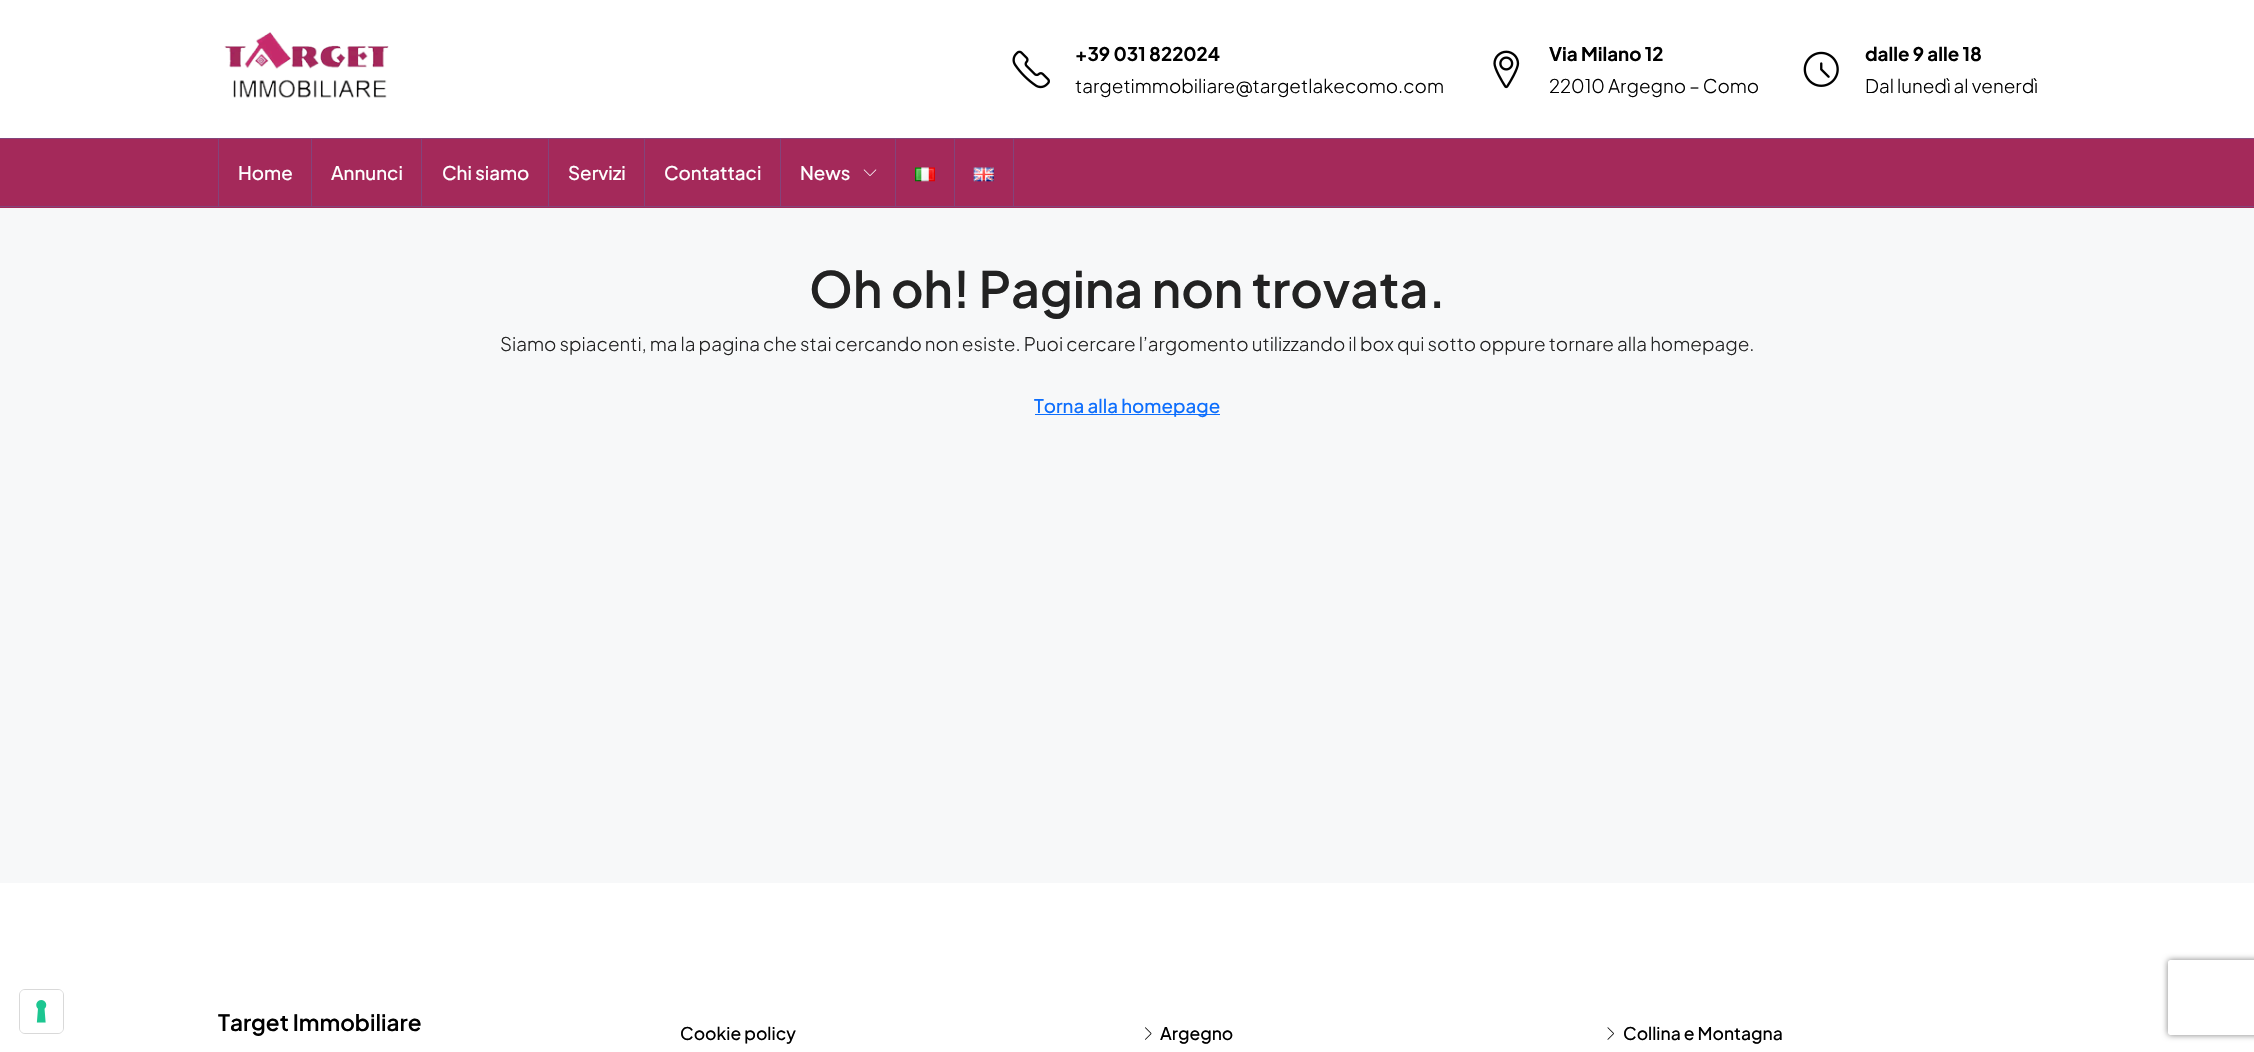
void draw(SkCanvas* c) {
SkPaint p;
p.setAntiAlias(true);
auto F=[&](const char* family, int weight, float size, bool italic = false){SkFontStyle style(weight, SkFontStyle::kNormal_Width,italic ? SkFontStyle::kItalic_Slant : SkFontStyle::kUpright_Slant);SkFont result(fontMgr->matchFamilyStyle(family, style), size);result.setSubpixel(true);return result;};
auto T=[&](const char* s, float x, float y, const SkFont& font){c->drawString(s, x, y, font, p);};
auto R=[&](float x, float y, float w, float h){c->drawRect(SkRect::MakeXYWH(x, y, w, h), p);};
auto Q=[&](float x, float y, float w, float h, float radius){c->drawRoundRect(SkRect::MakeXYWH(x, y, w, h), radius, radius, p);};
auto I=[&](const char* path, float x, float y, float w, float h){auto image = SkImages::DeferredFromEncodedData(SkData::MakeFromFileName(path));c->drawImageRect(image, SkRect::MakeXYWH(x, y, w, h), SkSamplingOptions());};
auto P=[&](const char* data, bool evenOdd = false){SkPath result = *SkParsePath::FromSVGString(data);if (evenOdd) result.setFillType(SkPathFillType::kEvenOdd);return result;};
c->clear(0xfff7f8f9);
p.setColor(0xffffffff);
R(0,0,2254,138);
I("1.png",224,32,165,66);
I("2.png",1012,50,38,39);
auto f1 = F("Plus Jakarta Sans",700,18.75);
p.setColor(0xff000000);
T("+39 031 822024",1075,61,f1);
auto f2 = F("Plus Jakarta Sans",300,18.75);
T("targetimmobiliare@targetlakecomo.com",1075,93,f2);
I("3.png",1493,50,27,39);
T("Via Milano 12",1549,61,f1);
T("22010 Argegno – Como",1549,93,f2);
I("4.png",1803,51,36,36);
T("dalle 9 alle 18",1865,61,f1);
T("Dal lunedì al venerdì",1865,93,f2);
p.setColor(0xffa4295a);
R(0,139,2254,69);
p.setColor(0xff83447b);
R(0,138,2254,1);
R(0,206,2254,1);
R(311,139,1,67);
R(218,139,1,67);
auto f3 = F("Plus Jakarta Sans",500,18.75);
p.setColor(0xffffffff);
T("Home",238,180,f3);
p.setColor(0xff83447b);
R(421,139,1,67);
p.setColor(0xffffffff);
T("Annunci",331,180,f3);
p.setColor(0xff83447b);
R(548,139,1,67);
p.setColor(0xffffffff);
T("Chi siamo",442,180,f3);
p.setColor(0xff83447b);
R(644,139,1,67);
p.setColor(0xffffffff);
T("Servizi",568,180,f3);
p.setColor(0xff83447b);
R(780,139,1,67);
p.setColor(0xffffffff);
T("Contattaci",664,180,f3);
p.setColor(0xff83447b);
R(895,139,1,67);
p.setColor(0xffffffff);
T("News",800,180,f3);
I("5.png",863,169,14,7);
p.setColor(0xff83447b);
R(954,139,1,67);
I("6.png",915,167,20,15);
R(1013,139,1,67);
I("7.png",973,167,21,15);
auto f4 = F("Plus Jakarta Sans",600,50);
p.setColor(0xff222222);
T("Oh oh! Pagina non trovata.",809,308,f4);
T("Siamo spiacenti, ma la pagina che stai cercando non esiste. Puoi cercare l’argomento utilizzando il box qui sotto oppure tornare alla homepage.",500,351,f2);
p.setColor(0xff0d6efd);
R(1035,414,185,1);
T("Torna alla homepage",1034,413,f3);
p.setColor(0xffffffff);
R(0,883,2254,169);
p.setStroke(true);
p.setStrokeWidth(1);
p.setColor(0xffd9d9d9);
c->drawRoundRect(SkRect::MakeXYWH(19.5,989.5,44,44),5.5,5.5,p);
p.setStroke(false);
p.setColor(0xffffffff);
Q(20,990,43,43,5);
I("8.png",36,1000,11,23);
auto f5 = F("Plus Jakarta Sans",600,22.5);
p.setColor(0xff000000);
T("Target Immobiliare",218,1031,f5);
auto f6 = F("Plus Jakarta Sans",500,17.5);
T("Cookie policy",680,1040,f6);
I("9.png",1145,1027,7,13);
T("Argegno",1160,1040,f6);
I("10.png",1607,1027,7,13);
T("Collina e Montagna",1623,1040,f6);
c->save();
c->clipPath(P("M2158 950h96v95h-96zm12.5 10h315c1.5 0 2.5 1 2.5 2.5v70c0 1.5-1 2.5-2.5 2.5h-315c-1.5 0-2.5-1-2.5-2.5v-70c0-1.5 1-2.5 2.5-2.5z",true),true);
p.setColor(0xff808080);
p.setMaskFilter(SkMaskFilter::MakeBlur(kNormal_SkBlurStyle, 3));
c->drawRoundRect(SkRect::MakeXYWH(2168,960,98,75),2.5,2.5,p);
p.setMaskFilter(nullptr);
c->restore();
}
